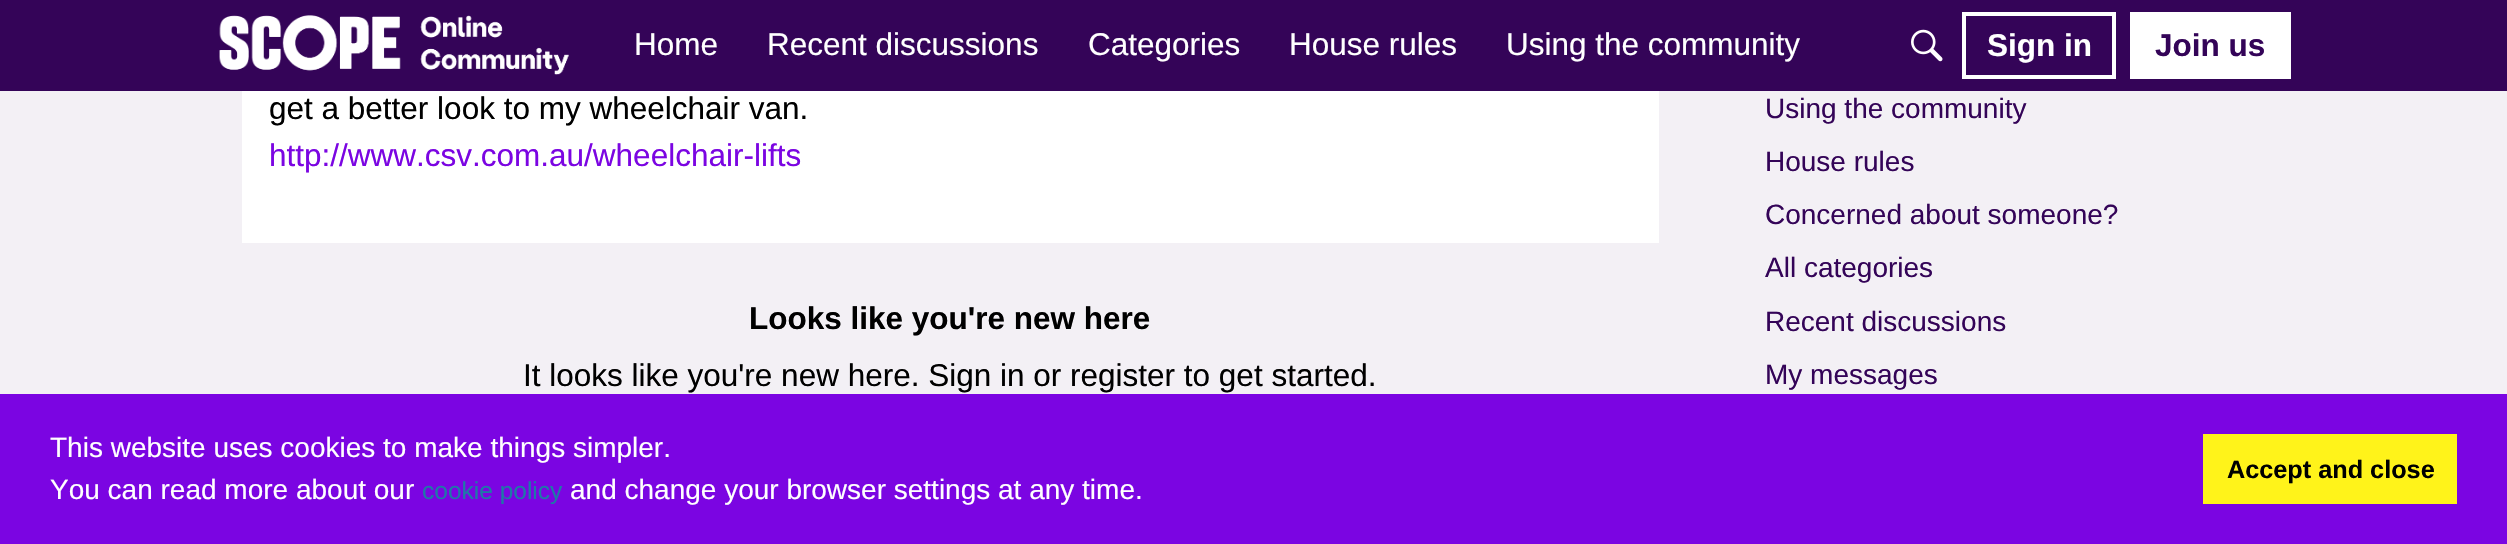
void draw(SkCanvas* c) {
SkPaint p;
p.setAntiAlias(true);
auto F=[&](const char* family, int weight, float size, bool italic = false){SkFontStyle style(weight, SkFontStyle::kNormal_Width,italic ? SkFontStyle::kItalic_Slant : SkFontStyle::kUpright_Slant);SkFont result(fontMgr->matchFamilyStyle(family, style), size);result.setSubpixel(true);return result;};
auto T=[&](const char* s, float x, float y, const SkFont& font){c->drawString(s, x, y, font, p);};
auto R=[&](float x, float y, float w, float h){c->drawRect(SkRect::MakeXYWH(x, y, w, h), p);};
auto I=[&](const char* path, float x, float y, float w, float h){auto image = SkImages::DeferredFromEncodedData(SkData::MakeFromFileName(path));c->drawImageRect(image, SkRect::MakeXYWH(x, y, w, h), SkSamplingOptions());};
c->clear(0xfff3f0f5);
p.setColor(0xff340458);
R(0,0,2507,91);
I("1.png",219,15,350,60);
auto f1 = F("Liberation Sans",400,31.5);
p.setColor(0xffffffff);
T("Home",634,55,f1);
T("Recent discussions",767,55,f1);
T("Categories",1088,55,f1);
T("House rules",1289,55,f1);
T("Using the community",1506,55,f1);
I("2.png",1911,29,32,33);
p.setStroke(true);
p.setStrokeWidth(4);
c->drawRect(SkRect::MakeXYWH(1964,14,150,63),p);
auto f2 = F("Liberation Sans",700,31.5);
p.setStroke(false);
T("Sign in",1987,56,f2);
R(2130,12,161,67);
p.setColor(0xff340458);
T("Join us",2155,56,f2);
p.setColor(0xffffffff);
R(242,91,1417,152);
p.setColor(0xff000000);
T("get a better look to my wheelchair van.",269,119,f1);
p.setColor(0xff7b05e2);
T("http://www.csv.com.au/wheelchair-lifts",269,166,f1);
p.setColor(0xff000000);
T("Looks like you're new here",749,329,f2);
T("It looks like you're new here. Sign in or register to get started.",523,386,f1);
auto f3 = F("Liberation Sans",400,28);
p.setColor(0xff340458);
T("Using the community",1765,118,f3);
T("House rules",1765,171,f3);
T("Concerned about someone?",1765,224,f3);
T("All categories",1765,277,f3);
T("Recent discussions",1765,331,f3);
T("My messages",1765,384,f3);
p.setColor(0xff7b05e2);
R(0,394,2507,150);
p.setColor(0xffffffff);
T("This website uses cookies to make things simpler.",50,457,f3);
T("You can read more about our",50,499,f3);
auto f4 = F("Liberation Sans",400,24.5);
p.setColor(0xff1e79a7);
T("cookie policy",422,499,f4);
p.setColor(0xffffffff);
T("and change your browser settings at any time.",570,499,f3);
p.setColor(0xfffff31a);
R(2203,434,254,70);
auto f5 = F("Liberation Sans",700,25.25);
p.setColor(0xff000000);
T("Accept and close",2227,478,f5);
}
